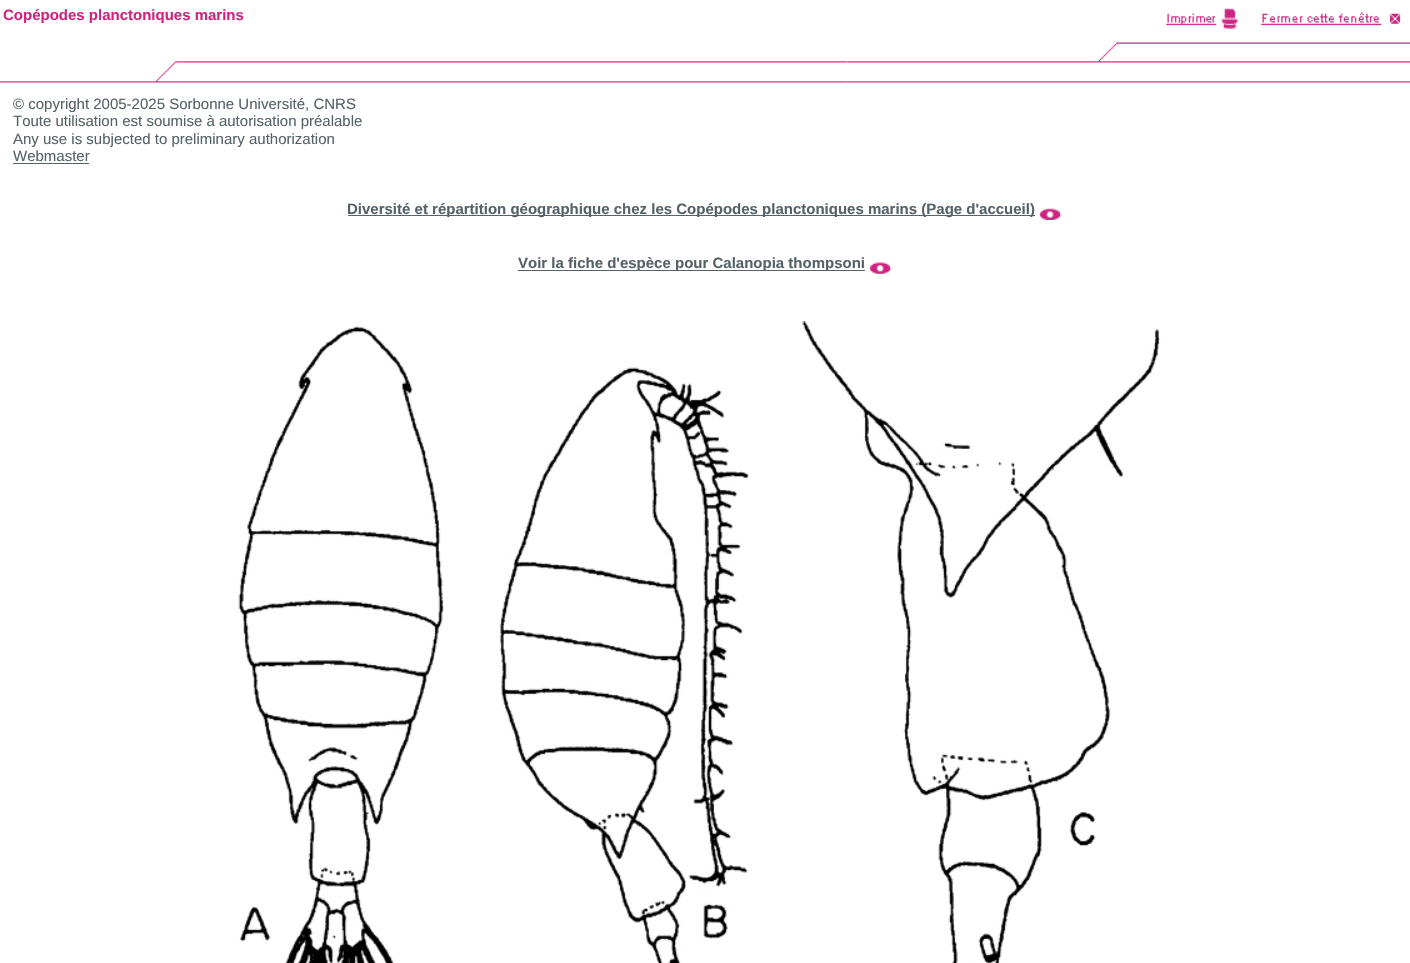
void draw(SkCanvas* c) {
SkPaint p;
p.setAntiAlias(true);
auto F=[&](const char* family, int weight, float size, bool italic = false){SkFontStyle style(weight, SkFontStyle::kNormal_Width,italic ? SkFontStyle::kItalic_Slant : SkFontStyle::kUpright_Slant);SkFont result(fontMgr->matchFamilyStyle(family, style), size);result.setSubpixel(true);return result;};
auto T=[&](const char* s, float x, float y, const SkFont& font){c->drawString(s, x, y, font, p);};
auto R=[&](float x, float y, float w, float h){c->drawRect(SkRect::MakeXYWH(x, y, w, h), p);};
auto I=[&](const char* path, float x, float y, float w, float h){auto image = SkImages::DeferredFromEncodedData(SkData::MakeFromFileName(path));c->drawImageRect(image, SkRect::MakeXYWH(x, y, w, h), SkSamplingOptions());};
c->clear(0xffffffff);
I("1.png",0,61,182,22);
I("2.png",181,61,667,22);
I("3.png",847,8,563,75);
auto f1 = F("Liberation Sans",700,15);
p.setColor(0xffcd2481);
T("Copépodes planctoniques marins",3,20,f1);
auto f2 = F("Liberation Sans",400,15);
p.setColor(0xff556268);
T("© copyright 2005-2025 Sorbonne Université, CNRS",13,109,f2);
T("Toute utilisation est soumise à autorisation préalable",13,126,f2);
T("Any use is subjected to preliminary authorization",13,144,f2);
T("Webmaster",13,161,f2);
R(13,163,76,1);
R(348,215,687,1);
T("Diversité et répartition géographique chez les Copépodes planctoniques marins (Page d'accueil)",347,214,f1);
I("4.png",1039,208,23,12);
R(518,270,347,1);
T("Voir la fiche d'espèce pour Calanopia thompsoni",518,268,f1);
I("5.png",869,262,23,12);
I("6.png",238,321,923,642);
}
